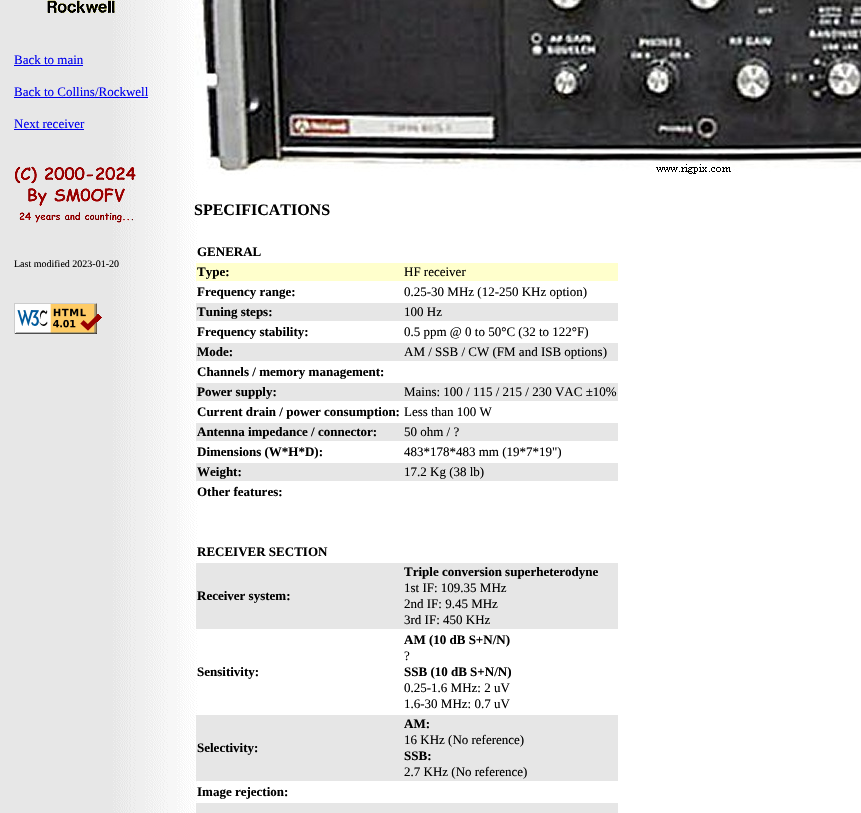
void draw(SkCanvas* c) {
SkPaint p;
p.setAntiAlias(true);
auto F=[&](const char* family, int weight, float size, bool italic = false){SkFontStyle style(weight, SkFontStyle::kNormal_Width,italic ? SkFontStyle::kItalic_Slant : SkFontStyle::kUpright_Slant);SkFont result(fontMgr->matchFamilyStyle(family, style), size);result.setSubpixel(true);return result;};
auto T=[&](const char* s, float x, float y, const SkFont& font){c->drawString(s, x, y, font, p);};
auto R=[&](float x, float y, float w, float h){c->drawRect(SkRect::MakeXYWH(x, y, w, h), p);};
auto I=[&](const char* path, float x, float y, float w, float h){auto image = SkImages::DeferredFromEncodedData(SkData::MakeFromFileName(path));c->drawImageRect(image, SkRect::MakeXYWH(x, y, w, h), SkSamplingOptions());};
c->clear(0xffffffff);
I("1.png",0,0,198,813);
I("2.png",47,0,68,13);
auto f1 = F("Liberation Serif",400,13);
p.setColor(0xff0000ee);
T("Back to main",14,64,f1);
R(14,65,69,1);
T("Back to Collins/Rockwell",14,96,f1);
R(14,97,134,1);
T("Next receiver",14,128,f1);
R(14,129,70,1);
I("3.png",15,166,121,57);
auto f2 = F("Liberation Serif",400,10);
p.setColor(0xff000000);
T("Last modified 2023-01-20",14,267,f2);
I("4.png",14,303,88,31);
I("5.png",194,0,667,179);
auto f3 = F("Liberation Serif",700,16);
T("SPECIFICATIONS",194,215,f3);
auto f4 = F("Liberation Serif",700,13);
T("GENERAL",197,256,f4);
p.setColor(0xffffffcc);
R(196,263,422,18);
p.setColor(0xff000000);
T("Type:",197,276,f4);
T("HF receiver",404,276,f1);
T("Frequency range:",197,296,f4);
T("0.25-30 MHz (12-250 KHz option)",404,296,f1);
p.setColor(0xffe6e6e6);
R(196,303,422,18);
p.setColor(0xff000000);
T("Tuning steps:",197,316,f4);
T("100 Hz",404,316,f1);
T("Frequency stability:",197,336,f4);
T("0.5 ppm @ 0 to 50°C (32 to 122°F)",404,336,f1);
p.setColor(0xffe6e6e6);
R(196,343,422,18);
p.setColor(0xff000000);
T("Mode:",197,356,f4);
T("AM / SSB / CW (FM and ISB options)",404,356,f1);
T("Channels / memory management:",197,376,f4);
p.setColor(0xffe6e6e6);
R(196,383,422,18);
p.setColor(0xff000000);
T("Power supply:",197,396,f4);
T("Mains: 100 / 115 / 215 / 230 VAC ±10%",404,396,f1);
T("Current drain / power consumption:",197,416,f4);
T("Less than 100 W",404,416,f1);
p.setColor(0xffe6e6e6);
R(196,423,422,18);
p.setColor(0xff000000);
T("Antenna impedance / connector:",197,436,f4);
T("50 ohm / ?",404,436,f1);
T("Dimensions (W*H*D):",197,456,f4);
T("483*178*483 mm (19*7*19\")",404,456,f1);
p.setColor(0xffe6e6e6);
R(196,463,422,18);
p.setColor(0xff000000);
T("Weight:",197,476,f4);
T("17.2 Kg (38 lb)",404,476,f1);
T("Other features:",197,496,f4);
T("RECEIVER SECTION",197,556,f4);
p.setColor(0xffe6e6e6);
R(196,563,422,66);
p.setColor(0xff000000);
T("Receiver system:",197,600,f4);
T("Triple conversion superheterodyne",404,576,f4);
T("1st IF: 109.35 MHz",404,592,f1);
T("2nd IF: 9.45 MHz",404,608,f1);
T("3rd IF: 450 KHz",404,624,f1);
T("Sensitivity:",197,676,f4);
T("AM (10 dB S+N/N)",404,644,f4);
T("?",404,660,f1);
T("SSB (10 dB S+N/N)",404,676,f4);
T("0.25-1.6 MHz: 2 uV",404,692,f1);
T("1.6-30 MHz: 0.7 uV",404,708,f1);
p.setColor(0xffe6e6e6);
R(196,715,422,66);
p.setColor(0xff000000);
T("Selectivity:",197,752,f4);
T("AM:",404,728,f4);
T("16 KHz (No reference)",404,744,f1);
T("SSB:",404,760,f4);
T("2.7 KHz (No reference)",404,776,f1);
T("Image rejection:",197,796,f4);
p.setColor(0xffe6e6e6);
R(196,803,422,10);
}
